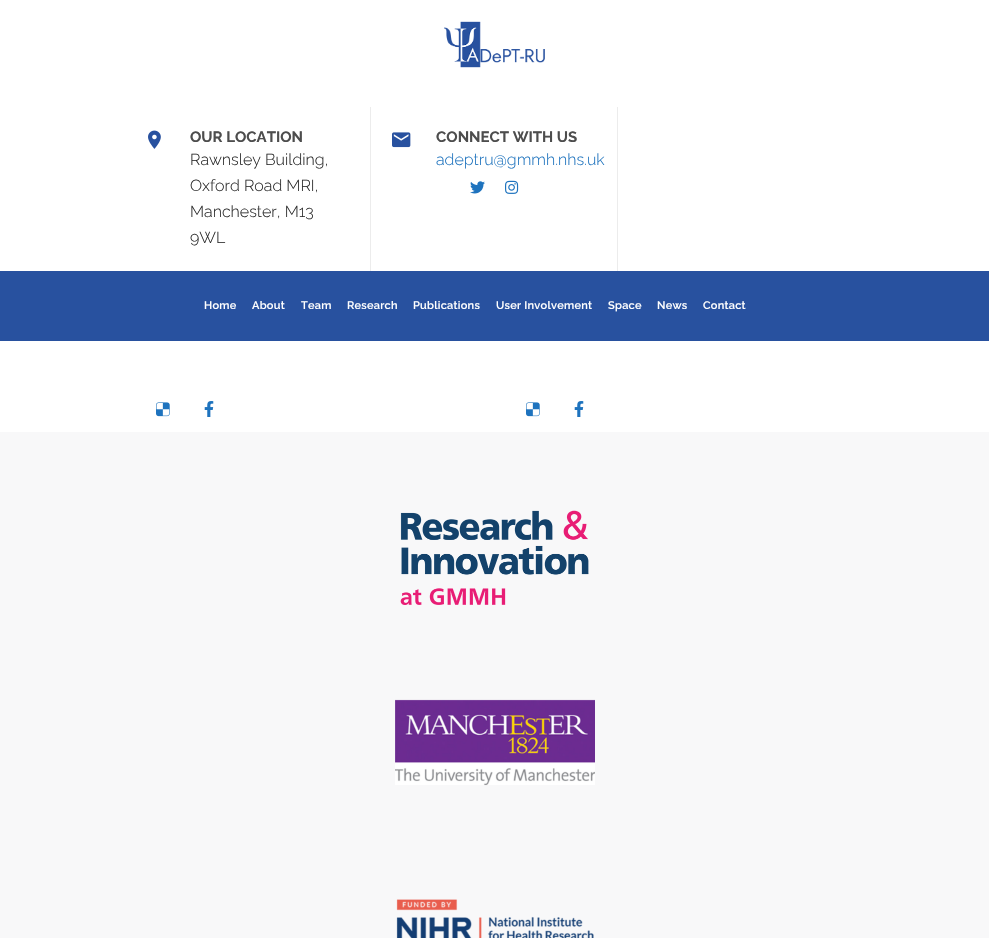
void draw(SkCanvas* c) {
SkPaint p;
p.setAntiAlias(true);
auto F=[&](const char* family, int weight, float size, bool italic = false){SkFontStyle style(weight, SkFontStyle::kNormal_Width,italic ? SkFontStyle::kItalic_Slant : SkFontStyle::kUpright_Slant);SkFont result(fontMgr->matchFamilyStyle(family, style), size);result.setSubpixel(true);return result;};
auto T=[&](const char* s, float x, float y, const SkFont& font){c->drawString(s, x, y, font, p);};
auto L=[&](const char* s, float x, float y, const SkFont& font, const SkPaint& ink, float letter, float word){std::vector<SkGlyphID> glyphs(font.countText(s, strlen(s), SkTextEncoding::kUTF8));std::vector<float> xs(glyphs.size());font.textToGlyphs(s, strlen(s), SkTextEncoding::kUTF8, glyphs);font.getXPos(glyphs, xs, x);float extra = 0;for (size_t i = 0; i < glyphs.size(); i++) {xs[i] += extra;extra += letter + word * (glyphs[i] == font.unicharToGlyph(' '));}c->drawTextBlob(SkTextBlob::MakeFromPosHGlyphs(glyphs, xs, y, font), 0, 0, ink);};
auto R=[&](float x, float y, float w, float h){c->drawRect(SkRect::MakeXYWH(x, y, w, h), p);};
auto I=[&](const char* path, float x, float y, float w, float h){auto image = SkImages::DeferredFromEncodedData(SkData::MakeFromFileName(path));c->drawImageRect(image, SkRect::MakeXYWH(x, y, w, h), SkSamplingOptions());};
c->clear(0xffffffff);
I("1.png",444,21,101,47);
I("2.png",148,130,13,19);
auto f1 = F("Raleway",700,15);
p.setColor(0xff4d4d4d);
T("OUR LOCATION",190,142,f1);
p.setColor(0xffececec);
R(370,107,1,164);
auto f2 = F("Raleway",300,16);
p.setColor(0xff2c2c2c);
T("Rawnsley Building,",190,165,f2);
T("Oxford Road MRI,",190,191,f2);
T("Manchester, M13",190,217,f2);
T("9WL",190,243,f2);
I("3.png",392,132,19,16);
p.setColor(0xff4d4d4d);
T("CONNECT WITH US",436,142,f1);
p.setColor(0xffececec);
R(617,107,1,164);
p.setColor(0xff1e73be);
T("adeptru@gmmh.nhs.uk",436,165,f2);
I("4.png",470,181,15,13);
I("5.png",505,180,14,14);
p.setColor(0xff28519f);
R(0,271,989,70);
auto f3 = F("Raleway",600,11);
p.setColor(0xffffffff);
L("Home",204,309,f3,p,.25,0);
L("About",252,309,f3,p,.25,0);
L("Team",301,309,f3,p,.25,0);
L("Research",347,309,f3,p,.25,0);
L("Publications",413,309,f3,p,.25,0);
L("User Involvement",496,309,f3,p,.25,0);
L("Space",608,309,f3,p,.25,0);
L("News",657,309,f3,p,.25,0);
L("Contact",703,309,f3,p,.25,0);
I("6.png",156,402,14,15);
I("7.png",204,401,10,16);
I("6.png",526,402,14,15);
I("7.png",574,401,10,16);
p.setColor(0xfff8f8f9);
R(0,432,989,506);
I("8.png",400,510,189,95);
I("9.png",395,699,200,87);
I("10.png",396,899,198,39);
}
